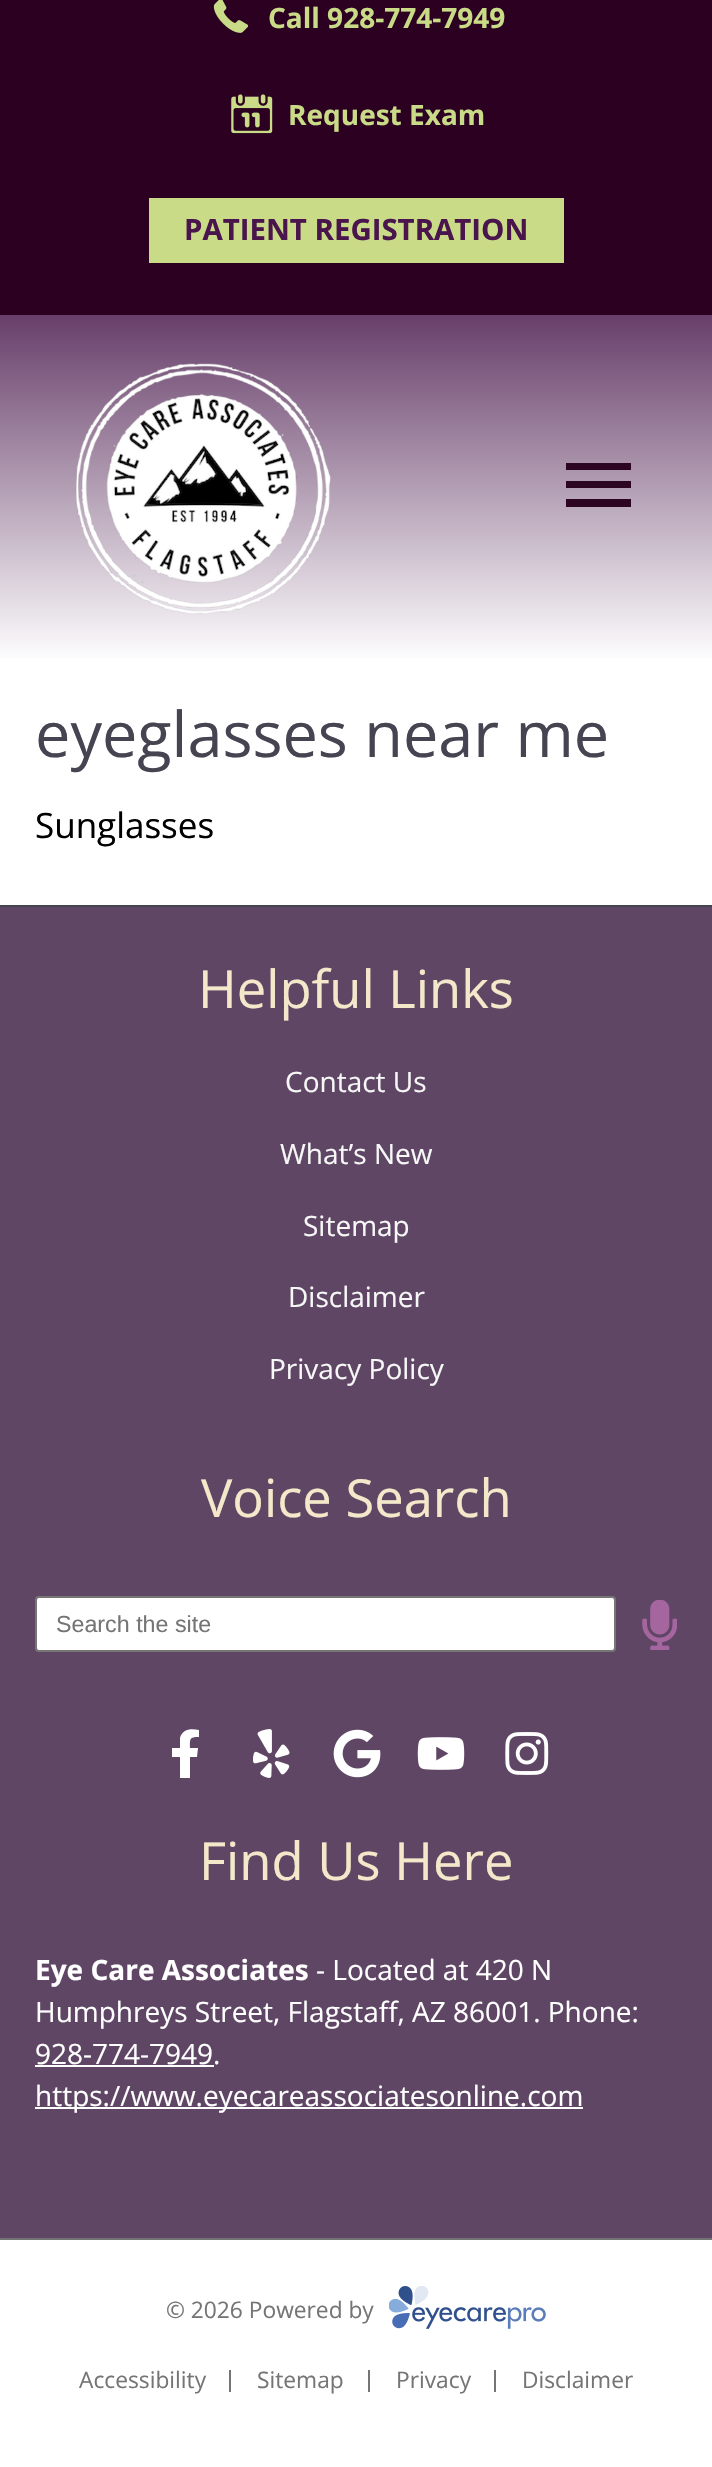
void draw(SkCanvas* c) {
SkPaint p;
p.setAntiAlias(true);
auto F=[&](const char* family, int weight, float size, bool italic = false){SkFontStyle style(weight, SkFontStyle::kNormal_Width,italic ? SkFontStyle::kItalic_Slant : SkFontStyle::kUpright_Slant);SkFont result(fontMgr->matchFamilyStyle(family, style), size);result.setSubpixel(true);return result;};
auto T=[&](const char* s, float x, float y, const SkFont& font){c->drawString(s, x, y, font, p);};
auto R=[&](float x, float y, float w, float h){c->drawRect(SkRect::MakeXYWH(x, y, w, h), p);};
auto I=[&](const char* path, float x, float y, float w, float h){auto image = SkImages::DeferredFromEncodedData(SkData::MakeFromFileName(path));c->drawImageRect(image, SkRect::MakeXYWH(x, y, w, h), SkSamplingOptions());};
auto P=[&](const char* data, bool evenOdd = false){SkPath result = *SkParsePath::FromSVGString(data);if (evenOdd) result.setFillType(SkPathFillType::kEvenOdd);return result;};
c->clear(0xffffffff);
p.setColor(0xff2b0021);
R(0,0,712,315);
I("1.png",213,0,36,33);
auto f1 = F("Open Sans",700,28);
p.setColor(0xffc9db86);
T("Call 928-774-7949",268,28,f1);
I("2.png",231,94,42,40);
T("Request Exam",288,125,f1);
R(149,198,415,65);
auto f2 = F("Open Sans",700,29.4);
p.setColor(0xff4a154d);
T("PATIENT REGISTRATION",184,240,f2);
{
const SkColor colors[] = {0xff49184c,0xffffffff};
const float stops[] = {0,1};
const SkPoint ends[] = {{356,245}, {356,663}};
p.setShader(SkGradientShader::MakeLinear(ends, colors, stops, 2, SkTileMode::kClamp));
p.setAlpha(255);
}
R(0,315,712,343);
I("3.png",75,363,256,251);
p.setShader(nullptr);
p.setColor(0xff2b0521);
c->drawPath(P("M566 463h65v7h-65v-7m0 18h65v7h-65v-7m0 18h65v8h-65z"),p);
auto f3 = F("Open Sans",400,63);
p.setColor(0xff464451);
T("eyeglasses near me",35,757,f3);
auto f4 = F("Open Sans",400,35);
p.setColor(0xff000000);
T("Sunglasses",35,838,f4);
p.setColor(0xff5f4664);
R(0,907,712,1331);
p.setColor(0xff464451);
R(0,905,712,2);
auto f5 = F("Open Sans",400,52.5);
p.setColor(0xfff4e8ca);
T("Helpful Links",198,1008,f5);
auto f6 = F("Open Sans",400,28);
p.setColor(0xfff7f7f7);
T("Contact Us",285,1092,f6);
T("What’s New",280,1164,f6);
T("Sitemap",303,1236,f6);
T("Disclaimer",288,1307,f6);
T("Privacy Policy",269,1379,f6);
p.setColor(0xfff4e8ca);
T("Voice Search",201,1517,f5);
p.setColor(0xffffffff);
c->drawRoundRect(SkRect::MakeXYWH(36,1597,579,54),3,3,p);
p.setStroke(true);
p.setStrokeWidth(2);
p.setColor(0xff767676);
c->drawRoundRect(SkRect::MakeXYWH(36,1597,579,54),3,3,p);
auto f7 = F("Liberation Sans",400,23.25);
p.setStroke(false);
p.setColor(0xff757575);
T("Search the site",56,1632,f7);
I("4.png",642,1600,35,50);
p.setColor(0xffffffff);
c->drawPath(P("M197 1757l1-9h-8c0-9-1-11 9-11v-7c-8-2-17-1-19 8v10h-8v9h8v21h10v-21z"),p);
I("5.png",253,1729,37,49);
I("6.png",333,1729,48,49);
I("7.png",417,1737,48,33);
I("8.png",505,1732,44,43);
p.setColor(0xfff4e8ca);
T("Find Us Here",199,1880,f5);
p.setColor(0xffffffff);
T("Eye Care Associates",35,1980,f1);
T("- Located at 420 N",316,1980,f6);
T("Humphreys Street, Flagstaff, AZ 86001. Phone:",35,2022,f6);
T("928-774-7949.",35,2064,f6);
R(35,2065,179,2);
R(35,2107,548,2);
T("https://www.eyecareassociatesonline.com",35,2106,f6);
p.setColor(0xff757575);
R(0,2238,712,2);
auto f8 = F("Open Sans",400,22.75);
T("© 2026 Powered by",166,2318,f8);
I("9.png",389,2286,157,43);
T("Accessibility",79,2388,f8);
R(229,2370,2,22);
T("Sitemap",257,2388,f8);
R(368,2370,2,22);
T("Privacy",396,2388,f8);
R(494,2370,2,22);
T("Disclaimer",522,2388,f8);
}
